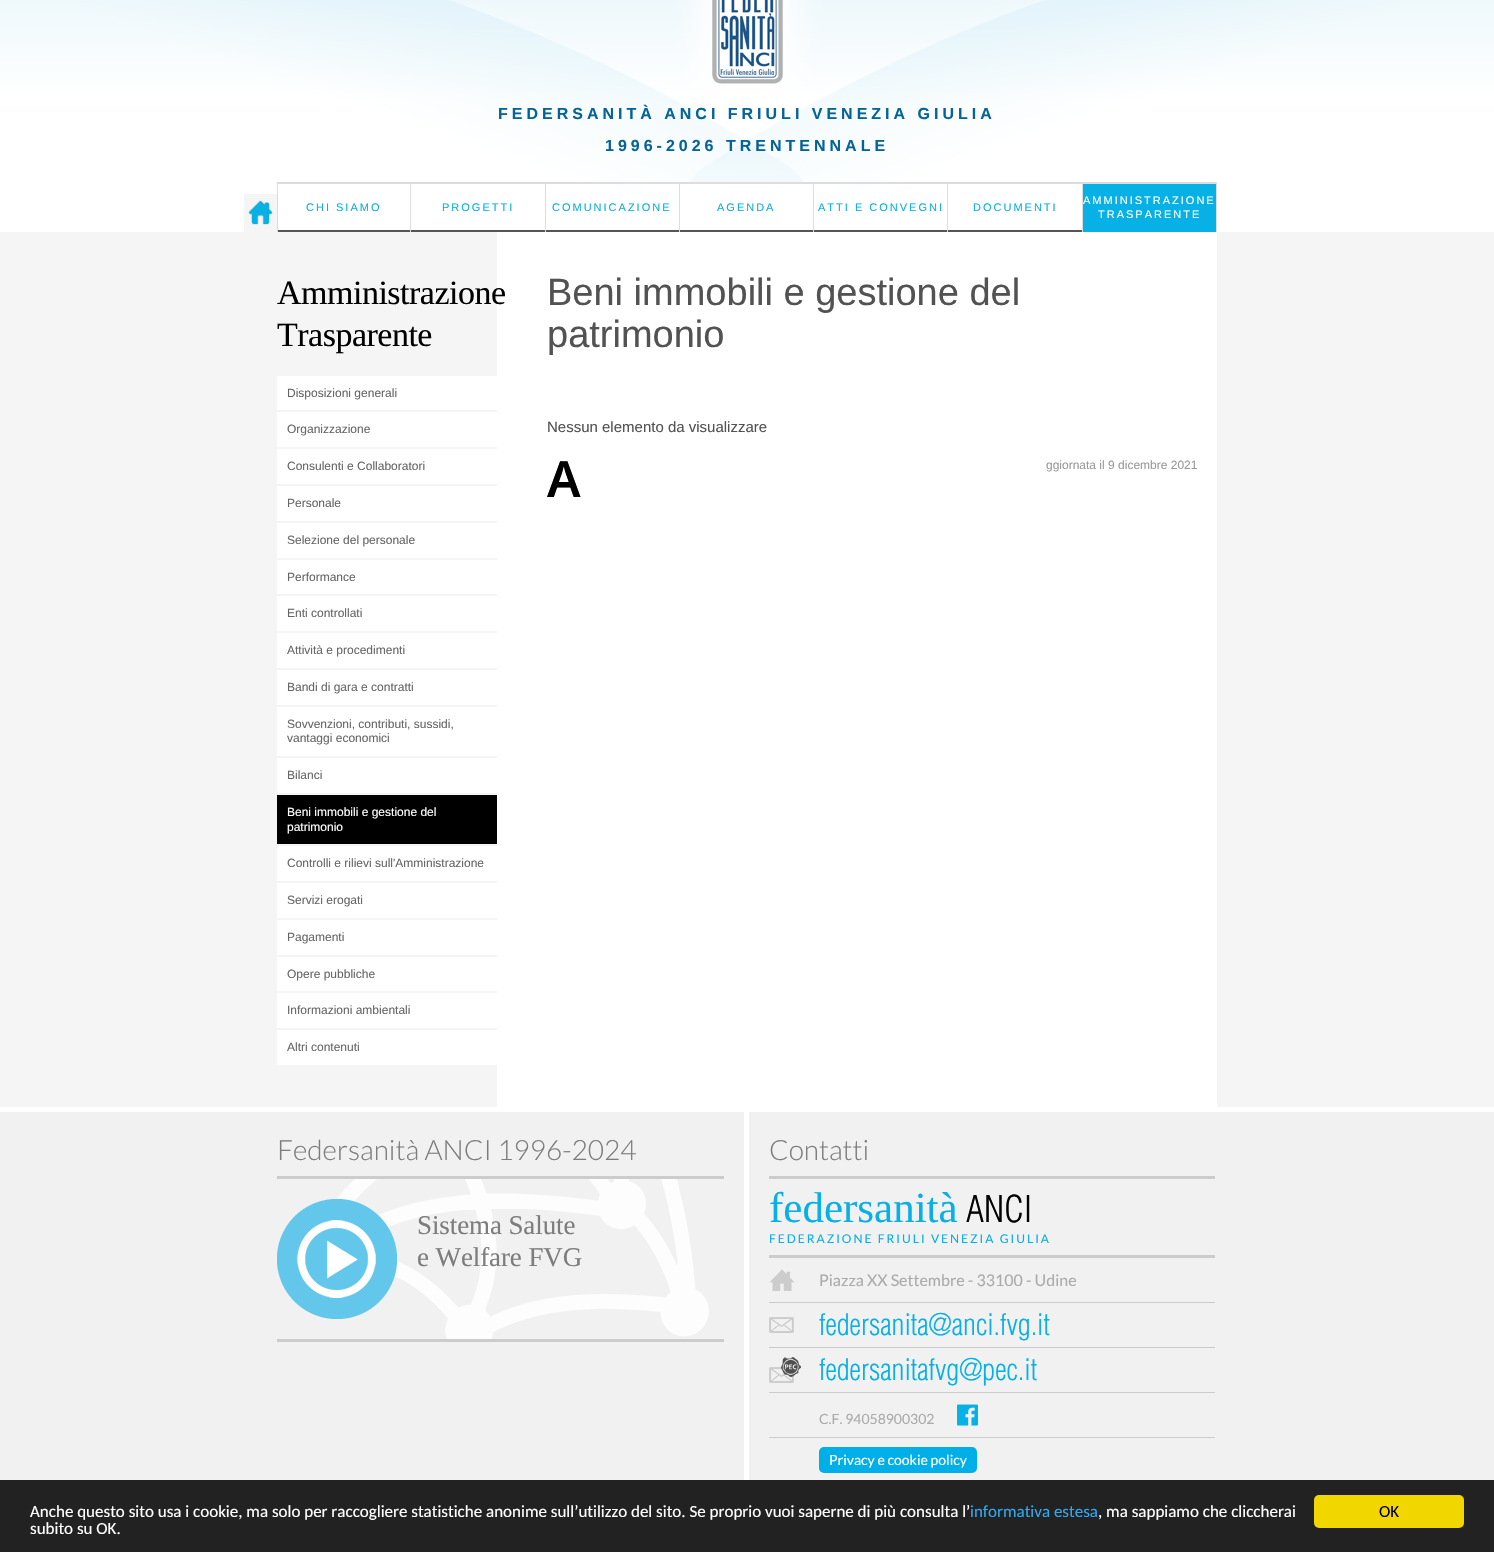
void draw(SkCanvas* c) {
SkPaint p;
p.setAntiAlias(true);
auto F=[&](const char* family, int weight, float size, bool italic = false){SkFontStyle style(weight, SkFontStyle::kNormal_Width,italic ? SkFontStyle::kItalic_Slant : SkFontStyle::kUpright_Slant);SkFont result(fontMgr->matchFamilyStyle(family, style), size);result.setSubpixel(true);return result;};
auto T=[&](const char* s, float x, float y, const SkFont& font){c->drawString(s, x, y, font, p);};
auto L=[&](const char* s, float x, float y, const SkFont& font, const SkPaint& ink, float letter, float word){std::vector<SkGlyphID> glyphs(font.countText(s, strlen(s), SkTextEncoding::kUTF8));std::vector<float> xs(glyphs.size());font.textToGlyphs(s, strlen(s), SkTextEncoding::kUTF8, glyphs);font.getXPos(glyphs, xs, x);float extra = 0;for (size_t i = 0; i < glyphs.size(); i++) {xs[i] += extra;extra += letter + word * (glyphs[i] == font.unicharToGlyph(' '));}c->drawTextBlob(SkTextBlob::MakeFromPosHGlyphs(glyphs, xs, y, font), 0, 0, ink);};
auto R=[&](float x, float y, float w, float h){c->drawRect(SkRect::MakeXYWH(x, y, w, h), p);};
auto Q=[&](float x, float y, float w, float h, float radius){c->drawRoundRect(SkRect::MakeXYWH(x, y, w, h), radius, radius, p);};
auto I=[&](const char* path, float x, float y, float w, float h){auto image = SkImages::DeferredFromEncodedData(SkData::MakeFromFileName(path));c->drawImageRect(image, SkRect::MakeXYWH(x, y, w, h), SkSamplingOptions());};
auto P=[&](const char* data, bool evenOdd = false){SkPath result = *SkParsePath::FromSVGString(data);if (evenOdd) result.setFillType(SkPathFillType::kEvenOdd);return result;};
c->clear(0xfff5f5f5);
p.setColor(0xffffffff);
R(0,221,1494,11);
I("1.png",0,0,1494,221);
c->save();
c->clipPath(P("M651 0h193v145h-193zm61-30h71v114h-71z",true),true);
p.setMaskFilter(SkMaskFilter::MakeBlur(kNormal_SkBlurStyle, 15));
c->drawRect(SkRect::MakeXYWH(697,-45,101,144),p);
p.setMaskFilter(nullptr);
c->restore();
I("2.png",712,0,71,84);
auto f1 = F("Liberation Sans",700,16);
p.setColor(0xff056397);
L("FEDERSANITÀ ANCI FRIULI VENEZIA GIULIA",498,119,f1,p,4,0);
L("1996-2026 TRENTENNALE",605,151,f1,p,4,0);
p.setColor(0xfff5f5f5);
R(244,194,33,38);
I("3.png",248,200,25,25);
p.setColor(0xff555555);
R(277,230,806,2);
p.setColor(0xffdddddd);
R(277,182,940,2);
R(410,182,1,50);
R(277,182,1,50);
auto f2 = F("Liberation Sans",400,11);
p.setColor(0xff07b0e5);
L("CHI SIAMO",306,211,f2,p,2,0);
p.setColor(0xffdddddd);
R(545,182,1,50);
p.setColor(0xff07b0e5);
L("PROGETTI",442,211,f2,p,2,0);
p.setColor(0xffffffff);
R(643,184,36,13);
p.setColor(0xffdddddd);
R(679,182,1,50);
p.setColor(0xff07b0e5);
L("COMUNICAZIONE",552,211,f2,p,2,0);
p.setColor(0xffffffff);
R(680,184,133,37);
p.setColor(0xffdddddd);
R(813,182,1,50);
p.setColor(0xff07b0e5);
L("AGENDA",717,211,f2,p,2,0);
p.setColor(0xffffffff);
R(814,184,25,9);
p.setColor(0xffdddddd);
R(947,182,1,50);
p.setColor(0xff07b0e5);
L("ATTI E CONVEGNI",818,211,f2,p,2,0);
p.setColor(0xffdddddd);
R(1082,182,1,50);
p.setColor(0xff07b0e5);
L("DOCUMENTI",973,211,f2,p,2,0);
R(1083,184,133,48);
p.setColor(0xffdddddd);
R(1216,182,1,50);
p.setColor(0xffffffff);
L("AMMINISTRAZIONE",1083,204,f2,p,2,0);
L("TRASPARENTE",1098,218,f2,p,2,0);
R(497,232,720,875);
auto f3 = F("Liberation Serif",400,34);
p.setColor(0xff000000);
L("Amministrazione",277,304,f3,p,-.5,0);
L("Trasparente",277,346,f3,p,-.5,0);
p.setColor(0xffffffff);
R(277,376,220,34);
auto f4 = F("Liberation Sans",400,12);
p.setColor(0xff666666);
T("Disposizioni generali",287,397,f4);
p.setColor(0xffffffff);
R(277,412,220,35);
p.setColor(0xff666666);
T("Organizzazione",287,433,f4);
p.setColor(0xffffffff);
R(277,449,220,35);
p.setColor(0xff666666);
T("Consulenti e Collaboratori",287,470,f4);
p.setColor(0xffffffff);
R(277,486,220,35);
p.setColor(0xff666666);
T("Personale",287,507,f4);
p.setColor(0xffffffff);
R(277,523,220,35);
p.setColor(0xff666666);
T("Selezione del personale",287,544,f4);
p.setColor(0xffffffff);
R(277,560,220,34);
p.setColor(0xff666666);
T("Performance",287,581,f4);
p.setColor(0xffffffff);
R(277,596,220,35);
p.setColor(0xff666666);
T("Enti controllati",287,617,f4);
p.setColor(0xffffffff);
R(277,633,220,35);
p.setColor(0xff666666);
T("Attività e procedimenti",287,654,f4);
p.setColor(0xffffffff);
R(277,670,220,35);
p.setColor(0xff666666);
T("Bandi di gara e contratti",287,691,f4);
p.setColor(0xffffffff);
R(277,707,220,49);
p.setColor(0xff666666);
T("Sovvenzioni, contributi, sussidi,",287,728,f4);
T("vantaggi economici",287,742,f4);
p.setColor(0xffffffff);
R(277,758,220,35);
p.setColor(0xff666666);
T("Bilanci",287,779,f4);
p.setColor(0xff000000);
R(277,795,220,49);
p.setColor(0xffffffff);
T("Beni immobili e gestione del",287,816,f4);
T("patrimonio",287,831,f4);
R(277,846,220,35);
p.setColor(0xff666666);
T("Controlli e rilievi sull'Amministrazione",287,867,f4);
p.setColor(0xffffffff);
R(277,883,220,35);
p.setColor(0xff666666);
T("Servizi erogati",287,904,f4);
p.setColor(0xffffffff);
R(277,920,220,35);
p.setColor(0xff666666);
T("Pagamenti",287,941,f4);
p.setColor(0xffffffff);
R(277,957,220,34);
p.setColor(0xff666666);
T("Opere pubbliche",287,978,f4);
p.setColor(0xffffffff);
R(277,993,220,35);
p.setColor(0xff666666);
T("Informazioni ambientali",287,1014,f4);
p.setColor(0xffffffff);
R(277,1030,220,35);
p.setColor(0xff666666);
T("Altri contenuti",287,1051,f4);
auto f5 = F("Liberation Sans",400,38);
p.setColor(0xff525252);
T("Beni immobili e gestione del",547,305,f5);
T("patrimonio",547,347,f5);
auto f6 = F("Liberation Sans",400,15);
T("Nessun elemento da visualizzare",547,432,f6);
auto f7 = F("Noto Sans",600,50);
p.setColor(0xff000000);
T("A",547,497,f7);
p.setColor(0xff999999);
T("ggiornata il 9 dicembre 2021",1046,469,f4);
p.setColor(0xfff1f1f1);
R(0,1112,1494,368);
p.setColor(0xffffffff);
R(0,1107,1494,5);
R(744,1112,5,368);
auto f8 = F("Lato",300,28);
p.setColor(0xff7d7d7d);
T("Federsanità ANCI 1996-2024",277,1160,f8);
I("4.png",336,1179,373,160);
p.setColor(0xffcccccc);
R(277,1176,447,3);
R(277,1339,447,3);
I("5.png",277,1199,120,120);
auto f9 = F("Liberation Serif",400,27);
p.setColor(0xff7d7d7d);
L("Sistema Salute",417,1234,f9,p,-.1,0);
L("e Welfare FVG",417,1266,f9,p,-.1,0);
T("Contatti",769,1160,f8);
p.setColor(0xffcccccc);
R(769,1176,446,3);
R(769,1255,446,3);
auto f10 = F("Liberation Serif",400,43);
p.setColor(0xff07b0e5);
T("federsanità",769,1222,f10);
auto f11 = F("Helvetica",300,36);
p.setColor(0xff000000);
T("ANCI",966,1222,f11);
auto f12 = F("Lato",400,12);
p.setColor(0xff07b0e5);
L("FEDERAZIONE FRIULI VENEZIA GIULIA",769,1243,f12,p,2,0);
I("6.png",769,1269,26,22);
p.setColor(0xffcccccc);
R(769,1302,446,1);
auto f13 = F("Lato",400,16);
p.setColor(0xffababab);
T("Piazza XX Settembre - 33100 - Udine",819,1286,f13);
I("7.png",769,1317,25,16);
p.setColor(0xffcccccc);
R(769,1347,446,1);
auto f14 = F("Helvetica",300,29);
p.setColor(0xff07b0e5);
T("federsanita@anci.fvg.it",819,1335,f14);
I("8.png",769,1357,32,26);
p.setColor(0xffcccccc);
R(769,1392,446,1);
p.setColor(0xff07b0e5);
T("federsanitafvg@pec.it",819,1380,f14);
p.setColor(0xffcccccc);
R(769,1437,446,1);
auto f15 = F("Lato",400,14);
p.setColor(0xffababab);
T("C.F. 94058900302",819,1424,f15);
I("9.png",957,1404,21,22);
p.setColor(0xff00afe8);
Q(819,1447,158,26,5);
p.setColor(0xffffffff);
T("Privacy e cookie policy",829,1465,f15);
p.setColor(0xff222222);
R(0,1480,1494,72);
auto f16 = F("Carlito",400,17);
p.setColor(0xffffffff);
T("Anche questo sito usa i cookie, ma solo per raccogliere statistiche anonime sull’utilizzo del sito. Se proprio vuoi saperne di più consulta l’",30,1517,f16);
p.setColor(0xff31a8f0);
T("informativa estesa",970,1517,f16);
p.setColor(0xffffffff);
T(", ma sappiamo che cliccherai",1098,1517,f16);
T("subito su OK.",30,1534,f16);
p.setColor(0xfff1d600);
Q(1314,1495,150,33,5);
p.setColor(0xff000000);
T("OK",1379,1517,f16);
}
